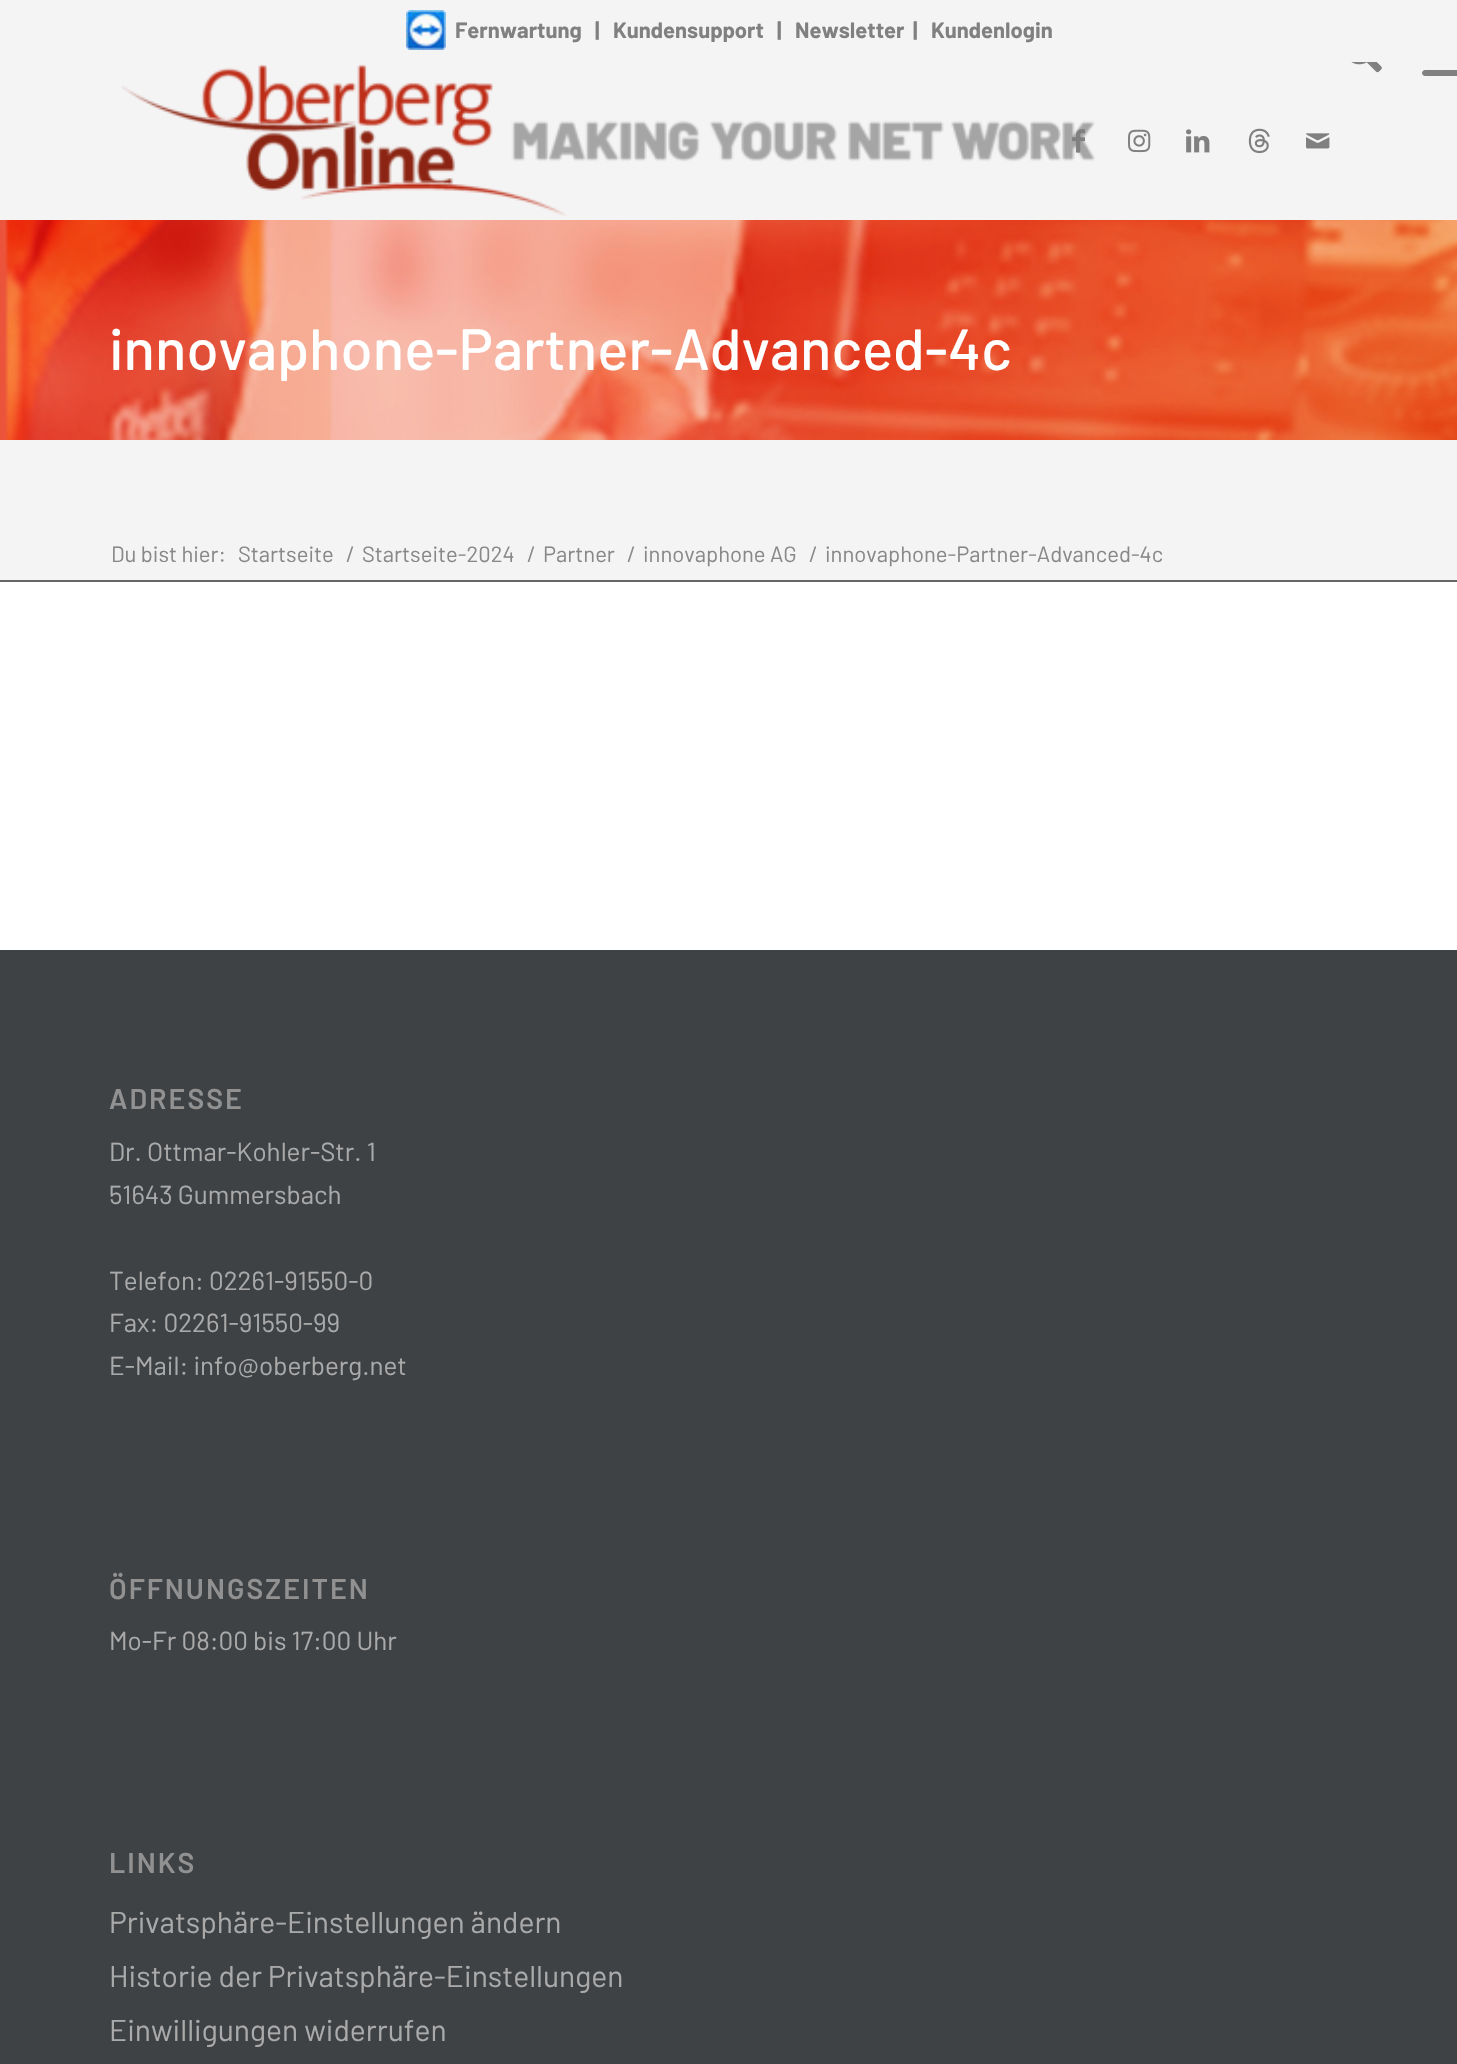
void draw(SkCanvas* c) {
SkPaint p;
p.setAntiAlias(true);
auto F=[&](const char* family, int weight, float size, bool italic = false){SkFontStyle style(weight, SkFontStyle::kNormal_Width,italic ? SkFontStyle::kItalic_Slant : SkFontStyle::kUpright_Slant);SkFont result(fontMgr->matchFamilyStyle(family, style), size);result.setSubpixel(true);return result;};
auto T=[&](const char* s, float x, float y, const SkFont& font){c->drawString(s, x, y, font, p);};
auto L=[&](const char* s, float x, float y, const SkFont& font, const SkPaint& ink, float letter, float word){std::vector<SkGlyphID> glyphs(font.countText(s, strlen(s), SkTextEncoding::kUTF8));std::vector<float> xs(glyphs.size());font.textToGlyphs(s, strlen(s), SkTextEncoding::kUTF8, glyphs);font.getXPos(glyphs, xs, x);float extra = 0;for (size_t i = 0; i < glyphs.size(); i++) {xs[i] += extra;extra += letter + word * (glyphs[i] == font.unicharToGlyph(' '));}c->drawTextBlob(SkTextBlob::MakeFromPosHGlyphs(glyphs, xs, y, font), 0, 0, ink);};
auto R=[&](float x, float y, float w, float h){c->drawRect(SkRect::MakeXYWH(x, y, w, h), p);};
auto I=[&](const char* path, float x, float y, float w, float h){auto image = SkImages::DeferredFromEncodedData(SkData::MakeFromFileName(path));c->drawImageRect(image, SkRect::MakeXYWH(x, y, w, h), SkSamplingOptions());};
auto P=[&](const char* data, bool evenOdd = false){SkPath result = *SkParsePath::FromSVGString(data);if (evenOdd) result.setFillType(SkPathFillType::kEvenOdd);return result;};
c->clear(0xfff4f4f4);
I("1.png",406,10,40,40);
auto f1 = F("Barlow",700,22);
p.setColor(0xff808080);
T("Fernwartung",455,38,f1);
T("|",595,38,f1);
T("Kundensupport",613,38,f1);
T("|",777,38,f1);
T("Newsletter",795,38,f1);
T("|",913,38,f1);
T("Kundenlogin",931,38,f1);
I("2.png",121,64,974,152);
I("3.png",1351,62,31,11);
c->drawPath(P("M1425 70h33v6h-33c-1.5 0-3-1.5-3-3c0-1.5 1.5-3 3-3z"),p);
I("4.png",1072,129,13,24);
I("5.png",1128,129,23,24);
I("6.png",1186,129,24,24);
I("7.png",1248,128,22,26);
I("8.png",1306,133,24,16);
I("9.png",0,220,1457,220);
auto f2 = F("Barlow",500,58);
p.setColor(0xffffffff);
T("innovaphone-Partner-Advanced-4c",109,370,f2);
auto f3 = F("Barlow",400,22);
p.setColor(0xff888888);
T("Du bist hier:",111,562,f3);
T("Startseite",238,562,f3);
T("/",346,562,f3);
T("Startseite-2024",362,562,f3);
T("/",527,562,f3);
T("Partner",543,562,f3);
T("/",627,562,f3);
T("innovaphone AG",643,562,f3);
T("/",809,562,f3);
T("innovaphone-Partner-Advanced-4c",825,562,f3);
p.setColor(0xffffffff);
R(0,582,1457,368);
p.setColor(0xff666666);
R(0,580,1457,2);
p.setColor(0xff3f4245);
R(0,950,1457,1114);
auto f4 = F("Barlow",600,28.5);
p.setColor(0xff919191);
L("ADRESSE",109,1109,f4,p,2,0);
auto f5 = F("Barlow",400,26);
p.setColor(0xffaaaaaa);
T("Dr. Ottmar-Kohler-Str. 1",109,1161,f5);
T("51643 Gummersbach",109,1204,f5);
T("Telefon: 02261-91550-0",109,1290,f5);
T("Fax: 02261-91550-99",109,1332,f5);
T("E-Mail: info@oberberg.net",109,1375,f5);
p.setColor(0xff919191);
L("ÖFFNUNGSZEITEN",109,1599,f4,p,2,0);
p.setColor(0xffaaaaaa);
T("Mo-Fr 08:00 bis 17:00 Uhr",109,1650,f5);
p.setColor(0xff919191);
L("LINKS",109,1873,f4,p,2,0);
auto f6 = F("Barlow",400,30);
p.setColor(0xffaaaaaa);
T("Privatsphäre-Einstellungen ändern",109,1933,f6);
T("Historie der Privatsphäre-Einstellungen",109,1987,f6);
T("Einwilligungen widerrufen",109,2041,f6);
}
